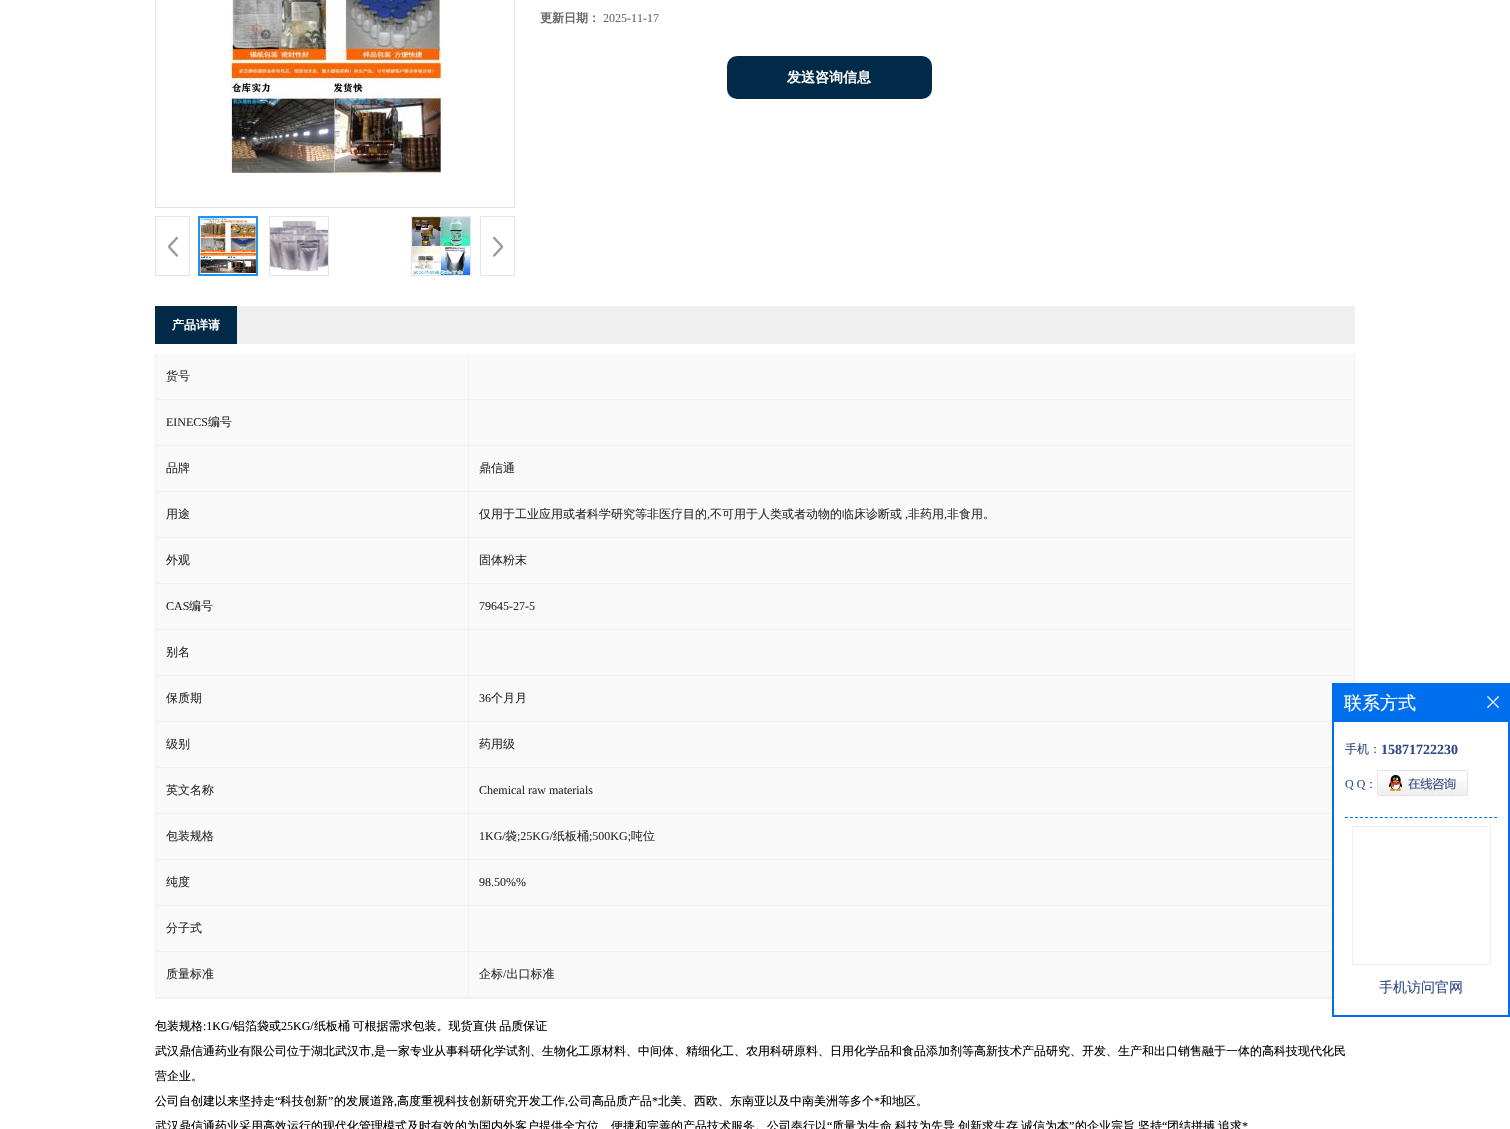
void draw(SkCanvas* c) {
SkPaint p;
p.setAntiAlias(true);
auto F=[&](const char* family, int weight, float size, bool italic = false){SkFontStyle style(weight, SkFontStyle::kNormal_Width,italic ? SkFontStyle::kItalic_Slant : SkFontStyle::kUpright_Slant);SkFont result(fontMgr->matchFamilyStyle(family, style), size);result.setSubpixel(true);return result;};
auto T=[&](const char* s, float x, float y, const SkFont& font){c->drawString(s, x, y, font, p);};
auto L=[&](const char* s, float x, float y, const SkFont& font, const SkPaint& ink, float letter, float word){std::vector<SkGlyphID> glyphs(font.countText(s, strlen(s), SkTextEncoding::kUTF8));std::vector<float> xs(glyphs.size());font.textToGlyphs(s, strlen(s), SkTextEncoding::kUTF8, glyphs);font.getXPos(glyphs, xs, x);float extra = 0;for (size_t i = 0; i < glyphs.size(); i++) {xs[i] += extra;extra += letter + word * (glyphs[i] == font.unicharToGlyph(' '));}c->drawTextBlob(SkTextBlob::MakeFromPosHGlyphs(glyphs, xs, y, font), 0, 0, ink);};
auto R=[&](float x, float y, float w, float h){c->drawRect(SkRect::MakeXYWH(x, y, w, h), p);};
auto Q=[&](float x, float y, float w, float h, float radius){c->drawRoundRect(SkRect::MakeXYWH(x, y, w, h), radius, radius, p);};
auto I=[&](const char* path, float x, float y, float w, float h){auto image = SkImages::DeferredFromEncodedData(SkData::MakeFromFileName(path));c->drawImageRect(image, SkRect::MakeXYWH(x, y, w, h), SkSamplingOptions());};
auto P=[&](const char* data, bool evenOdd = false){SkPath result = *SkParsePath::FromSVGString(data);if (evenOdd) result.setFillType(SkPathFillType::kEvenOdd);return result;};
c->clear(0xffffffff);
p.setStroke(true);
p.setStrokeWidth(1);
p.setColor(0xffe4e4e4);
c->drawRect(SkRect::MakeXYWH(155.5,-.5,359,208),p);
I("1.png",230,0,211,177);
I("2.png",168,236,10,21);
p.setColor(0xffe5e5e5);
c->drawRect(SkRect::MakeXYWH(155.5,216.5,34,59),p);
p.setStrokeWidth(2);
p.setColor(0xff1b94f6);
c->drawRect(SkRect::MakeXYWH(199,217,58,58),p);
I("3.png",200,218,56,56);
p.setStrokeWidth(1);
p.setColor(0xffe5e5e5);
c->drawRect(SkRect::MakeXYWH(269.5,216.5,59,59),p);
I("4.png",270,221,58,51);
c->drawRect(SkRect::MakeXYWH(411.5,216.5,59,59),p);
I("5.png",412,217,58,58);
I("6.png",493,236,10,21);
c->drawRect(SkRect::MakeXYWH(480.5,216.5,34,59),p);
auto f1 = F("WenQuanYi Zen Hei",700,12);
p.setStroke(false);
p.setColor(0xff666666);
T("更新日期：",540,22,f1);
auto f2 = F("Liberation Serif",400,12);
T("2025-11-17",603,22,f2);
p.setColor(0xff002a48);
Q(727,56,205,43,10);
auto f3 = F("WenQuanYi Zen Hei",700,14);
p.setColor(0xffffffff);
T("发送咨询信息",787,82,f3);
p.setColor(0xffefefef);
R(237,306,1118,38);
p.setColor(0xff002a48);
R(155,306,82,38);
p.setColor(0xffffffff);
T("产品详请",172,329,f1);
p.setColor(0xfff1f1f1);
R(155,998,1177,1);
R(155,354,1,645);
p.setColor(0xfff9f9f9);
R(156,354,1198,643);
p.setColor(0xfff1f1f1);
R(468,354,1,644);
R(156,399,313,1);
auto f4 = F("WenQuanYi Zen Hei",500,12);
p.setColor(0xff2d2d2d);
T("货号",166,380,f4);
p.setColor(0xfff1f1f1);
R(1354,354,1,329);
R(469,399,886,1);
R(156,445,1199,1);
p.setColor(0xff2d2d2d);
T("EINECS",166,426,f2);
T("编号",208,426,f4);
p.setColor(0xfff1f1f1);
R(156,491,1199,1);
p.setColor(0xff2d2d2d);
T("品牌",166,472,f4);
T("鼎信通",479,472,f4);
p.setColor(0xfff1f1f1);
R(156,537,1199,1);
p.setColor(0xff2d2d2d);
T("用途",166,518,f4);
T("仅用于工业应用或者科学研究等非医疗目的",479,518,f4);
T(",",707,518,f2);
T("不可用于人类或者动物的临床诊断或",710,518,f4);
T(",",905,518,f2);
T("非药用",908,518,f4);
T(",",944,518,f2);
T("非食用。",947,518,f4);
p.setColor(0xfff1f1f1);
R(156,583,1199,1);
p.setColor(0xff2d2d2d);
T("外观",166,564,f4);
T("固体粉末",479,564,f4);
p.setColor(0xfff1f1f1);
R(156,629,1199,1);
p.setColor(0xff2d2d2d);
T("CAS",166,610,f2);
T("编号",189,610,f4);
T("79645-27-5",479,610,f2);
p.setColor(0xfff1f1f1);
R(156,675,1199,1);
p.setColor(0xff2d2d2d);
T("别名",166,656,f4);
p.setColor(0xfff1f1f1);
R(156,721,1176,1);
p.setColor(0xff2d2d2d);
T("保质期",166,702,f4);
T("36",479,702,f2);
T("个月月",491,702,f4);
p.setColor(0xfff1f1f1);
R(156,767,1176,1);
p.setColor(0xff2d2d2d);
T("级别",166,748,f4);
T("药用级",479,748,f4);
p.setColor(0xfff1f1f1);
R(156,813,1176,1);
p.setColor(0xff2d2d2d);
T("英文名称",166,794,f4);
T("Chemical raw materials",479,794,f2);
p.setColor(0xfff1f1f1);
R(156,859,1176,1);
p.setColor(0xff2d2d2d);
T("包装规格",166,840,f4);
T("1KG/",479,840,f2);
T("袋",505,840,f4);
T(";25KG/",517,840,f2);
T("纸板桶",553,840,f4);
T(";500KG;",589,840,f2);
T("吨位",631,840,f4);
p.setColor(0xfff1f1f1);
R(156,905,1176,1);
p.setColor(0xff2d2d2d);
T("纯度",166,886,f4);
T("98.50%%",479,886,f2);
p.setColor(0xfff1f1f1);
R(156,951,1176,1);
p.setColor(0xff2d2d2d);
T("分子式",166,932,f4);
p.setColor(0xfff1f1f1);
R(156,997,1176,1);
p.setColor(0xff2d2d2d);
T("质量标准",166,978,f4);
T("企标 出口标准",479,978,f4);
T("/",503,978,f2);
p.setColor(0xff000000);
T("包装规格",155,1030,f4);
T(":1KG/",203,1030,f2);
T("铝箔袋或",233,1030,f4);
T("25KG/",281,1030,f2);
L("纸板桶 可根据需求包装。现货直供 品质保证",314,1030,f4,p,0,-1);
T("武汉鼎信通药业有限公司位于湖北武汉市",155,1055,f4);
T(",",371,1055,f2);
T("是一家专业从事科研化学试剂、生物化工原材料、中间体、精细化工、农用科研原料、日用化学品和食品添加剂等高新技术产品研究、开发、生产和出口销售融于一体的高科技现代化民",374,1055,f4);
T("营企业。",155,1080,f4);
T("公司自创建以来坚持走",155,1105,f4);
T("“",275,1105,f2);
T("科技创新",280,1105,f4);
T("”",328,1105,f2);
T("的发展道路",334,1105,f4);
T("高度重视科技创新研究开发工作",397,1105,f4);
T("公司高品质产品",568,1105,f4);
T("*",652,1105,f2);
T("北美、西欧、东南亚以及中南美洲等多个",658,1105,f4);
T("*",874,1105,f2);
T("和地区。",880,1105,f4);
T(",",394,1105,f2);
T(",",565,1105,f2);
T("武汉鼎信通药业采用高效运行的现代化管理模式及时有效的为国内外客户提供全方位、便捷和完善的产品技术服务。公司奉行以",155,1130,f4);
T("“",827,1130,f2);
T("质量为生命",832,1130,f4);
T("科技为先导",895,1130,f4);
T("创新求生存",958,1130,f4);
T("诚信为本",1021,1130,f4);
T("”",1069,1130,f2);
T("的企业宗旨",1075,1130,f4);
T("坚持",1138,1130,f4);
T("“",1162,1130,f2);
T("团结拼搏",1167,1130,f4);
T("追求",1218,1130,f4);
T("*",1242,1130,f2);
p.setColor(0xff006fed);
R(1332,683,178,334);
auto f5 = F("WenQuanYi Zen Hei",500,18);
p.setColor(0xffffffff);
T("联系方式",1344,709,f5);
I("7.png",1487,696,12,12);
R(1334,722,174,293);
p.setStroke(true);
p.setColor(0xff006fed);
p.setPathEffect(SkDashPathEffect::Make({{3,1.97f}}, 0));
c->drawPath(P("M1345 817.5h152"),p);
p.setPathEffect(nullptr);
p.setStroke(false);
p.setColor(0xff314985);
T("手机：",1345,753,f4);
auto f6 = F("Liberation Serif",700,14);
T("15871722230",1381,754,f6);
T("Q Q",1345,788,f2);
T("：",1365,788,f4);
I("8.png",1377,770,91,26);
p.setStroke(true);
p.setColor(0xffeeeeee);
c->drawRect(SkRect::MakeXYWH(1352.5,826.5,138,138),p);
auto f7 = F("WenQuanYi Zen Hei",500,14);
p.setStroke(false);
p.setColor(0xff314985);
T("手机访问官网",1379,992,f7);
}
